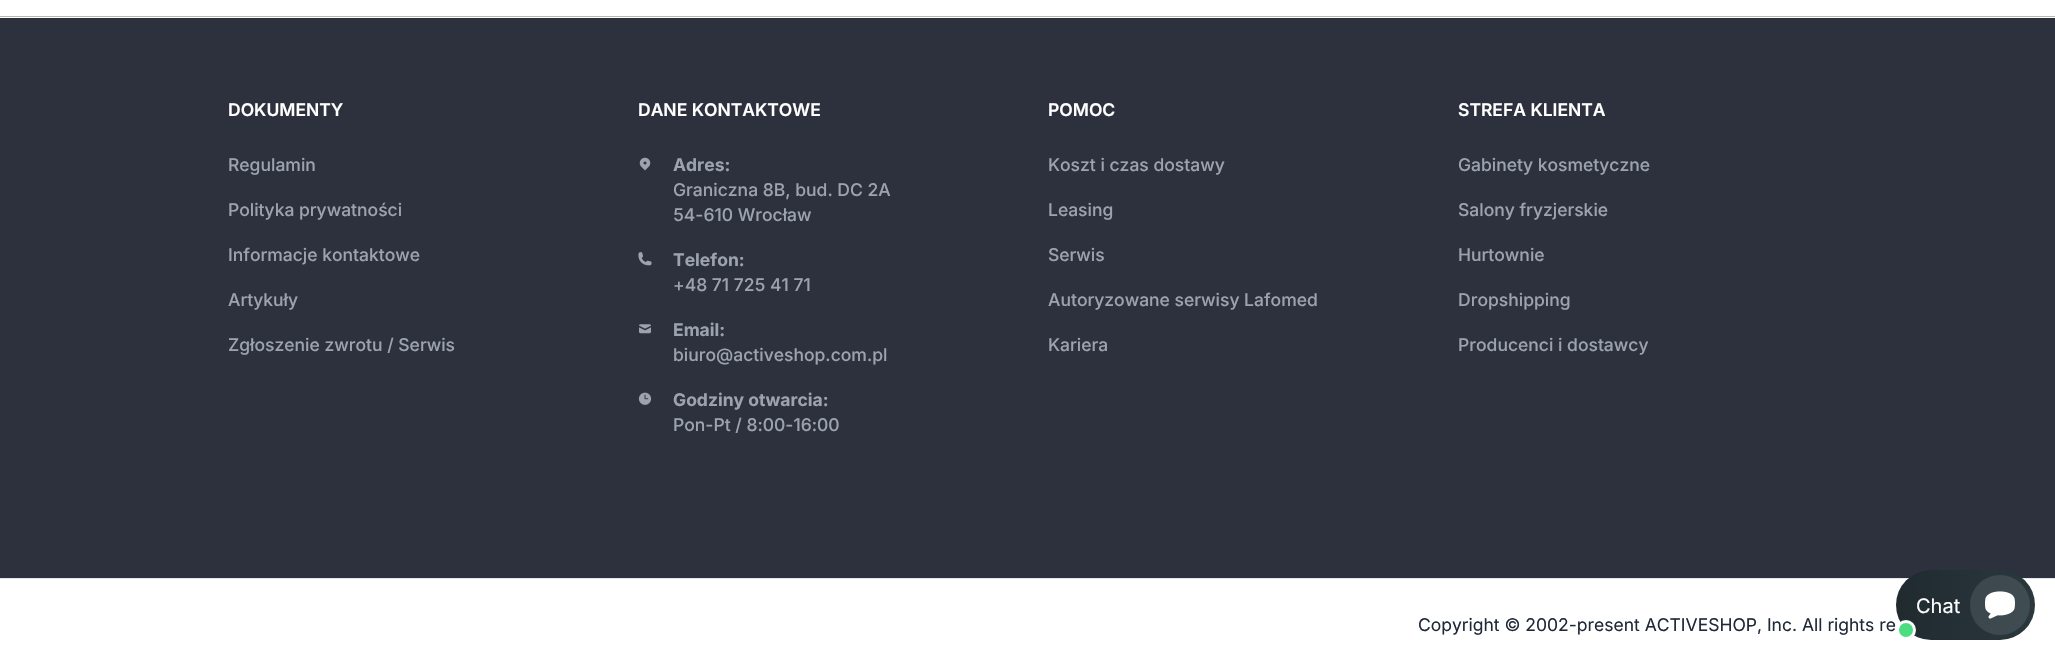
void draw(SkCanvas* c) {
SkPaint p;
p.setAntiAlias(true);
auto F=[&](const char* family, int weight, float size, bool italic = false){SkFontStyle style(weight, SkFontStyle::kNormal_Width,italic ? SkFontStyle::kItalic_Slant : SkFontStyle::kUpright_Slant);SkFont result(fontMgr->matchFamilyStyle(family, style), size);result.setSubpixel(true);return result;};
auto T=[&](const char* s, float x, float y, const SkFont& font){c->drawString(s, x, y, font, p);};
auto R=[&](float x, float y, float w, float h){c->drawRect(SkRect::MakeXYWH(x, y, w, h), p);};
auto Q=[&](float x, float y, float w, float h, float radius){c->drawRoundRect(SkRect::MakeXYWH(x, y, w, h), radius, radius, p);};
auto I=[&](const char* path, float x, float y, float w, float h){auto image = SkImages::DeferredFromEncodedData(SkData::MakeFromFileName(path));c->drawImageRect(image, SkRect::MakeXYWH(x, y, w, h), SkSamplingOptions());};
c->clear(0xffffffff);
p.setColor(0xff2c313d);
R(0,18,2055,560);
p.setColor(0xffb6b6b6);
R(0,16,2055,1);
auto f1 = F("Inter",600,17.5);
p.setColor(0xffffffff);
T("DOKUMENTY",228,116,f1);
auto f2 = F("Inter",500,17.5);
p.setColor(0xff9ca3af);
T("Regulamin",228,171,f2);
T("Polityka prywatności",228,216,f2);
T("Informacje kontaktowe",228,261,f2);
T("Artykuły",228,306,f2);
T("Zgłoszenie zwrotu / Serwis",228,351,f2);
p.setColor(0xffffffff);
T("DANE KONTAKTOWE",638,116,f1);
I("1.png",639,157,12,14);
auto f3 = F("Inter",700,17.5);
p.setColor(0xff9ca3af);
T("Adres:",673,171,f3);
T("Graniczna 8B, bud. DC 2A",673,196,f2);
T("54-610 Wrocław",673,221,f2);
I("2.png",638,252,14,14);
T("Telefon:",673,266,f3);
T("+48 71 725 41 71",673,291,f2);
I("3.png",639,324,12,10);
T("Email:",673,336,f3);
T("biuro@activeshop.com.pl",673,361,f2);
I("4.png",638,392,14,13);
T("Godziny otwarcia:",673,406,f3);
T("Pon-Pt / 8:00-16:00",673,431,f2);
p.setColor(0xffffffff);
T("POMOC",1048,116,f1);
p.setColor(0xff9ca3af);
T("Koszt i czas dostawy",1048,171,f2);
T("Leasing",1048,216,f2);
T("Serwis",1048,261,f2);
T("Autoryzowane serwisy Lafomed",1048,306,f2);
T("Kariera",1048,351,f2);
p.setColor(0xffffffff);
T("STREFA KLIENTA",1458,116,f1);
p.setColor(0xff9ca3af);
T("Gabinety kosmetyczne",1458,171,f2);
T("Salony fryzjerskie",1458,216,f2);
T("Hurtownie",1458,261,f2);
T("Dropshipping",1458,306,f2);
T("Producenci i dostawcy",1458,351,f2);
p.setColor(0xffe7e7e7);
R(0,578,2055,1);
auto f4 = F("Inter",400,17.5);
p.setColor(0xff1f2937);
T("Copyright © 2002-present ACTIVESHOP, Inc. All rights re",1418,631,f4);
{
const SkColor colors[] = {0xff202a2f,0xff2a383e};
const float stops[] = {0,1};
const SkPoint ends[] = {{1896,605}, {2035,605}};
p.setShader(SkGradientShader::MakeLinear(ends, colors, stops, 2, SkTileMode::kClamp));
p.setAlpha(255);
}
Q(1896,570,139,70,35);
auto f5 = F("Inter",400,20);
p.setShader(nullptr);
p.setColor(0xffffffff);
T("Chat",1916,613,f5);
p.setColor(0x1affffff);
c->drawCircle(2000,605,30,p);
I("5.png",1985,591,30,28);
p.setColor(0xff4ade80);
c->drawCircle(1906,630,8.5,p);
p.setStroke(true);
p.setStrokeWidth(3);
p.setColor(0xffffffff);
c->drawCircle(1906,630,8.5,p);
}
